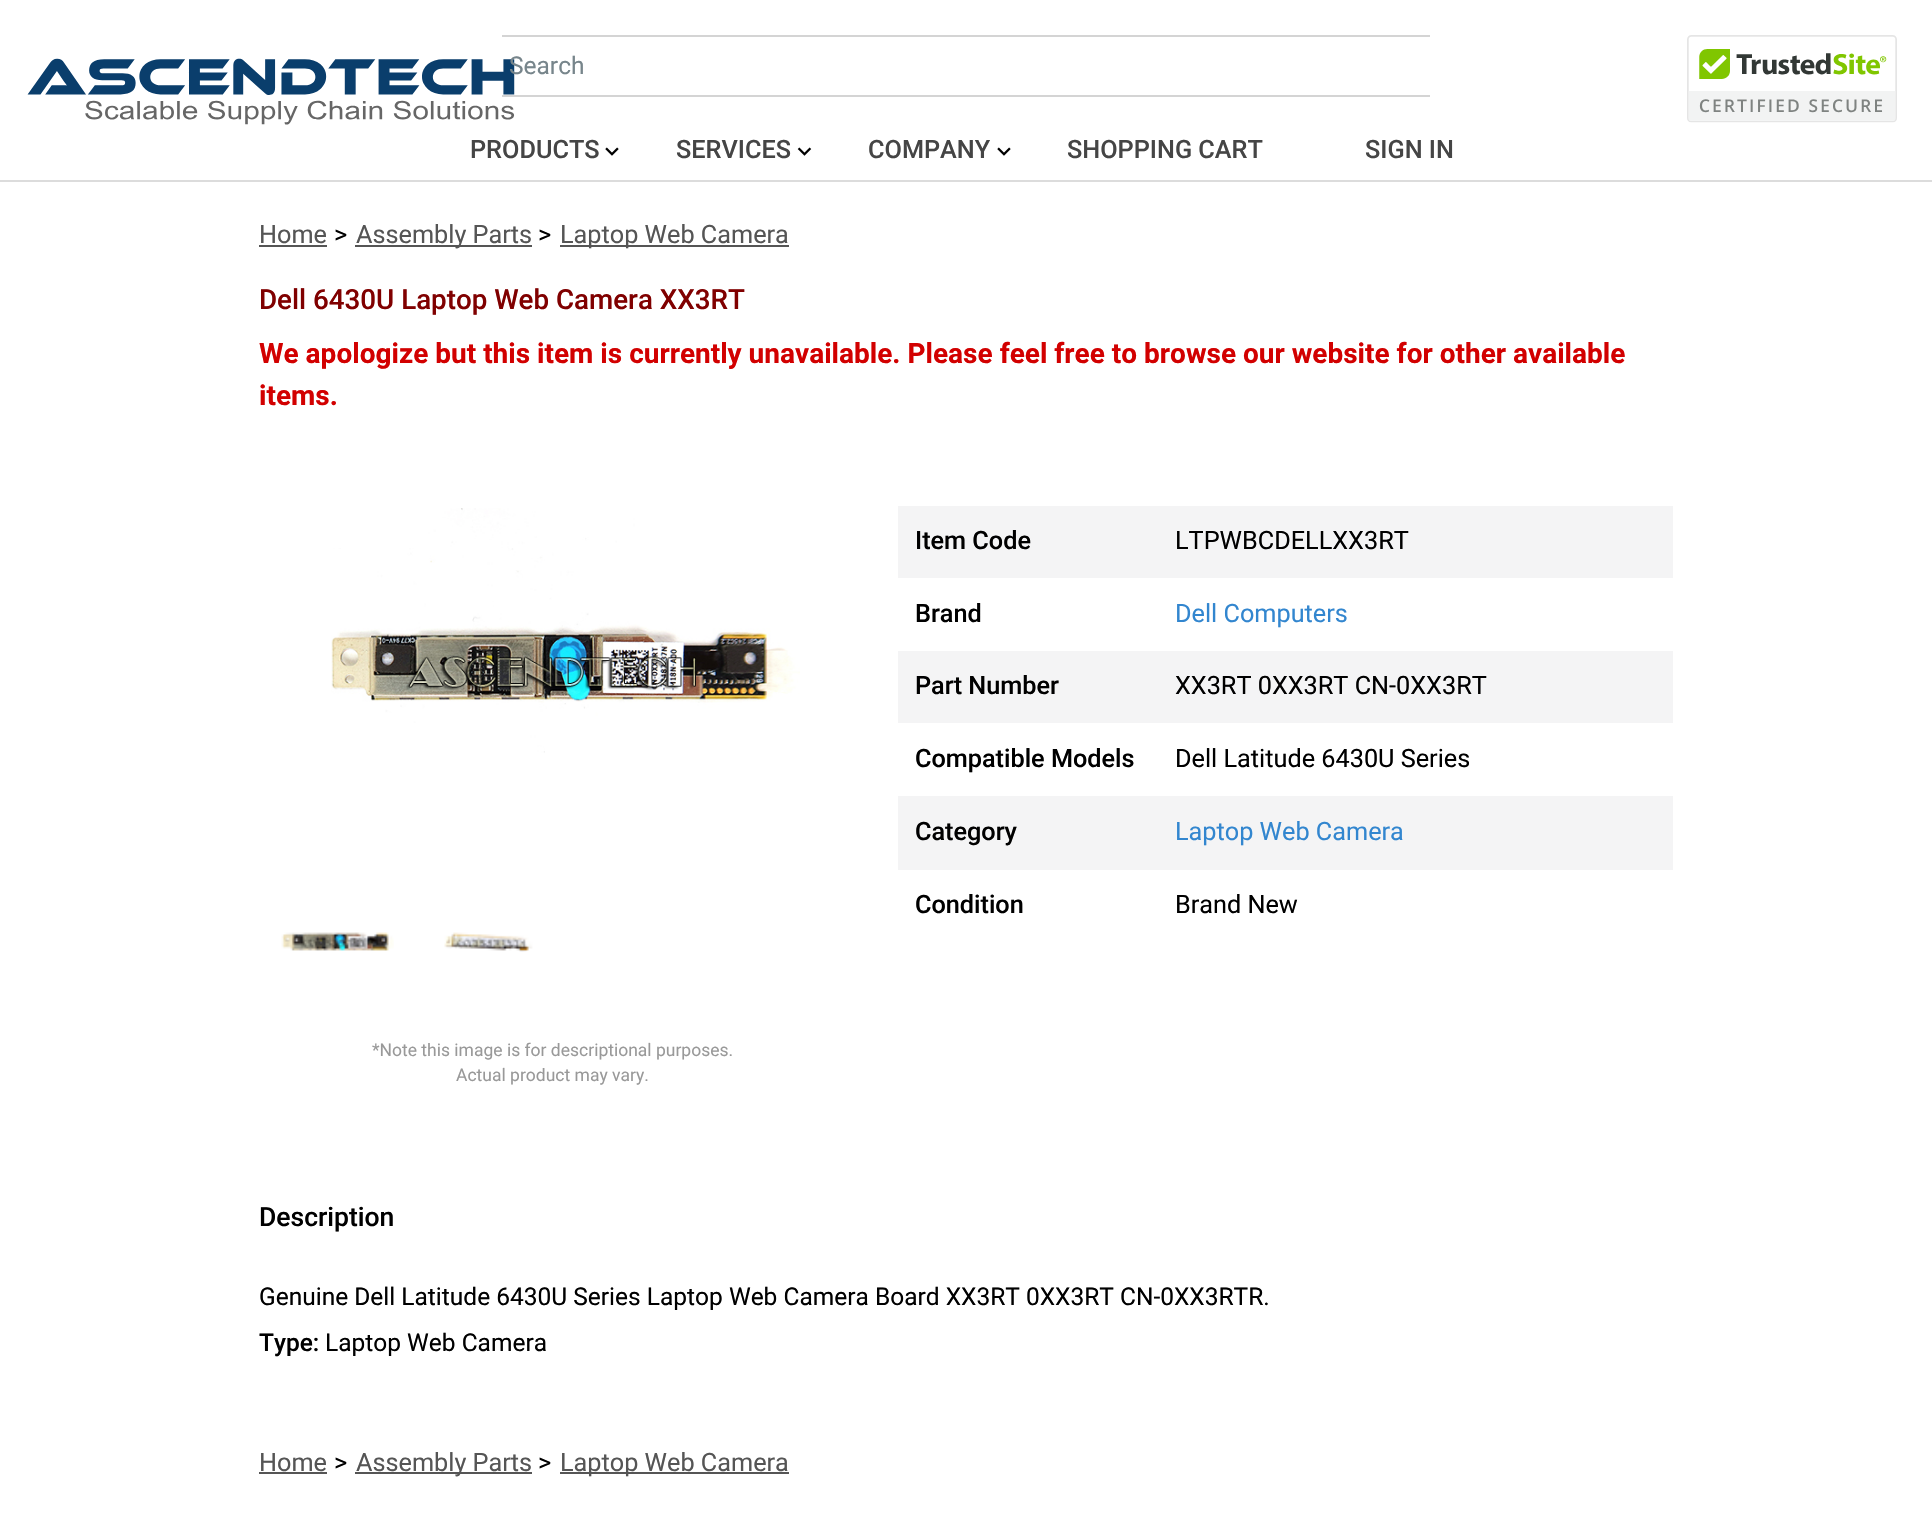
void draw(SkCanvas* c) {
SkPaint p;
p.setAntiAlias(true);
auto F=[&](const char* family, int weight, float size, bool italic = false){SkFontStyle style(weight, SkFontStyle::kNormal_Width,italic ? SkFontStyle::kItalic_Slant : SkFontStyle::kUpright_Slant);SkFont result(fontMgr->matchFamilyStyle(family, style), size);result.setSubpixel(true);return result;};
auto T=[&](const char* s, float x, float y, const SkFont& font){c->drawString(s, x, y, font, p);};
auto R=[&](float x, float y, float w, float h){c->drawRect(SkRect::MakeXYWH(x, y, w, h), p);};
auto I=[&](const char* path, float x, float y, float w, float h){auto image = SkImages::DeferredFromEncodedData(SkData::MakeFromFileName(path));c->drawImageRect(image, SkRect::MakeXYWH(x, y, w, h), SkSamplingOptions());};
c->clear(0xffffffff);
p.setColor(0xffdcdcdc);
R(0,180,1932,2);
I("1.png",27,58,488,67);
p.setColor(0xffd4d4d4);
R(502,35,928,2);
R(502,95,928,2);
auto f1 = F("Roboto",400,24.5);
p.setColor(0xff77858b);
T("Search",509,74,f1);
I("2.png",1687,35,210,88);
auto f2 = F("Roboto",500,25.25);
p.setColor(0xff454545);
T("PRODUCTS",470,158,f2);
I("3.png",605,147,14,9);
T("SERVICES",676,158,f2);
I("4.png",797,147,15,9);
T("COMPANY",868,158,f2);
I("3.png",997,147,14,9);
T("SHOPPING CART",1067,158,f2);
T("SIGN IN",1365,158,f2);
auto f3 = F("Roboto",400,25.25);
p.setColor(0xff555555);
T("Home",259,243,f3);
R(259,245,68,2);
p.setColor(0xff000000);
T(">",334,243,f3);
p.setColor(0xff555555);
R(355,245,177,2);
T("Assembly Parts",356,243,f3);
p.setColor(0xff000000);
T(">",538,243,f3);
p.setColor(0xff555555);
R(560,245,229,2);
T("Laptop Web Camera",560,243,f3);
auto f4 = F("Roboto",500,27.75);
p.setColor(0xff800000);
T("Dell 6430U Laptop Web Camera XX3RT",259,309,f4);
auto f5 = F("Roboto",700,28);
p.setColor(0xffd20000);
T("We apologize but this item is currently unavailable. Please feel free to browse our website for other available",259,363,f5);
T("items.",259,405,f5);
p.setColor(0xfff4f4f5);
R(898,506,775,72);
p.setColor(0xff000000);
T("Item Code",915,549,f2);
T("LTPWBCDELLXX3RT",1175,549,f3);
T("Brand",915,622,f2);
p.setColor(0xff3286cf);
T("Dell Computers",1175,622,f3);
p.setColor(0xfff4f4f5);
R(898,651,775,72);
p.setColor(0xff000000);
T("Part Number",915,694,f2);
T("XX3RT 0XX3RT CN-0XX3RT",1175,694,f3);
T("Compatible Models",915,767,f2);
T("Dell Latitude 6430U Series",1175,767,f3);
p.setColor(0xfff4f4f5);
R(898,796,775,74);
p.setColor(0xff000000);
T("Category",915,840,f2);
p.setColor(0xff3286cf);
T("Laptop Web Camera",1175,840,f3);
p.setColor(0xff000000);
T("Condition",915,913,f2);
T("Brand New",1175,913,f3);
I("5.png",331,508,469,245);
I("6.png",281,932,113,19);
I("7.png",444,932,89,20);
auto f6 = F("Roboto",400,17.5);
p.setColor(0xff999999);
T("*Note this image is for descriptional purposes.",372,1056,f6);
T("Actual product may vary.",456,1081,f6);
auto f7 = F("Roboto",500,26.5);
p.setColor(0xff000000);
T("Description",259,1226,f7);
T("Genuine Dell Latitude 6430U Series Laptop Web Camera Board XX3RT 0XX3RT CN-0XX3RTR.",259,1305,f1);
auto f8 = F("Roboto",500,24.5);
T("Type:",259,1351,f8);
T("Laptop Web Camera",325,1351,f1);
p.setColor(0xff555555);
T("Home",259,1471,f3);
R(259,1472,68,2);
p.setColor(0xff000000);
T(">",334,1471,f3);
p.setColor(0xff555555);
R(355,1472,177,2);
T("Assembly Parts",356,1471,f3);
p.setColor(0xff000000);
T(">",538,1471,f3);
p.setColor(0xff555555);
R(560,1472,229,2);
T("Laptop Web Camera",560,1471,f3);
}
